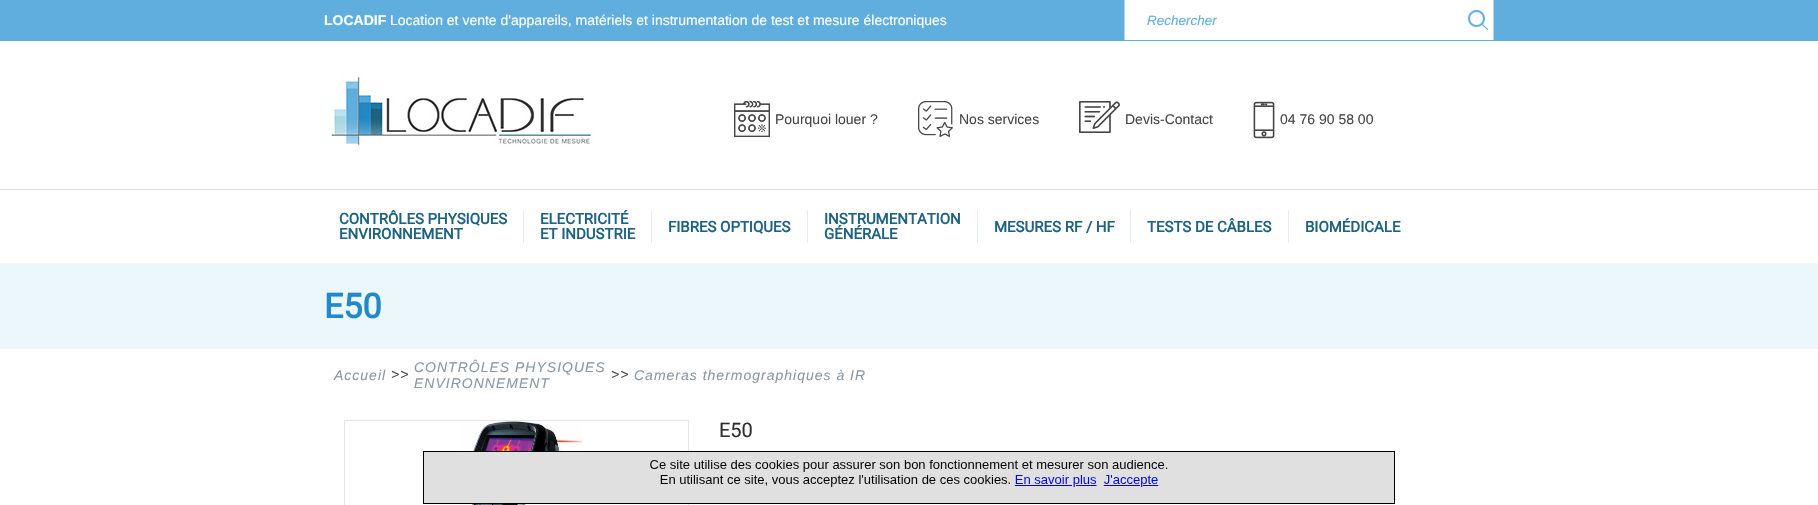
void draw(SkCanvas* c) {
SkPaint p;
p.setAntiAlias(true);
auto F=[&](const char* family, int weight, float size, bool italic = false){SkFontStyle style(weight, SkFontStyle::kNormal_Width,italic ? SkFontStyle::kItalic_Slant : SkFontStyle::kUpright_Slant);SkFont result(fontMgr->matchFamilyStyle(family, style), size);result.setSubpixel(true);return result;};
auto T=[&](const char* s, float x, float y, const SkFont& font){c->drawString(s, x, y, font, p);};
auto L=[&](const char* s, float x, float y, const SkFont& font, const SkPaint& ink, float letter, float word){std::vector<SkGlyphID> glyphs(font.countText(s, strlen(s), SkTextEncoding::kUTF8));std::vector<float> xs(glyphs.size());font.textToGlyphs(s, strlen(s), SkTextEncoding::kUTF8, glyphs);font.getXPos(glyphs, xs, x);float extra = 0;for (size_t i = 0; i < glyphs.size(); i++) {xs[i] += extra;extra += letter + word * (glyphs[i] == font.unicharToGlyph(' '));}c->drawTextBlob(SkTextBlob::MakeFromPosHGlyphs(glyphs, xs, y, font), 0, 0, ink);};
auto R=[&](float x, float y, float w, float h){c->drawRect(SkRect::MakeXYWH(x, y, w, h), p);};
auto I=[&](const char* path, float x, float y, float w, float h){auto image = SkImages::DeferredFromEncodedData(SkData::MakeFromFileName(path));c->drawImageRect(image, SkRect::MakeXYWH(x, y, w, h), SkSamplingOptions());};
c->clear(0xffffffff);
p.setColor(0xff60aede);
R(0,0,1818,41);
auto f1 = F("Liberation Sans",700,14);
p.setColor(0xffffffff);
T("LOCADIF",324,25,f1);
auto f2 = F("Liberation Sans",400,14);
T("Location et vente d'appareils, matériels et instrumentation de test et mesure électroniques",390,25,f2);
R(1125,0,368,40);
p.setColor(0xffaed6ee);
R(1493,0,1,40);
R(1124,0,1,40);
auto f3 = F("Liberation Sans",400,13.5,true);
p.setColor(0xff60aede);
T("Rechercher",1147,25,f3);
I("1.png",1468,10,21,20);
I("2.png",330,74,264,72);
I("3.png",734,101,36,36);
p.setColor(0xff464646);
T("Pourquoi louer ?",775,124,f2);
I("4.png",918,101,35,36);
T("Nos services",959,124,f2);
I("5.png",1079,101,41,32);
T("Devis-Contact",1125,124,f2);
I("6.png",1253,101,22,38);
T("04 76 90 58 00",1280,124,f2);
p.setColor(0xffdfdfdf);
R(0,189,1818,1);
auto f4 = F("Roboto",700,15);
p.setColor(0xff1d6281);
T("CONTRÔLES PHYSIQUES",339,224,f4);
T("ENVIRONNEMENT",339,239,f4);
p.setColor(0xffe5ebf0);
R(523,210,1,33);
p.setColor(0xff1d6281);
T("ELECTRICITÉ",540,224,f4);
T("ET INDUSTRIE",540,239,f4);
p.setColor(0xffe5ebf0);
R(651,210,1,33);
p.setColor(0xff1d6281);
T("FIBRES OPTIQUES",668,232,f4);
p.setColor(0xffe5ebf0);
R(807,210,1,33);
p.setColor(0xff1d6281);
T("INSTRUMENTATION",824,224,f4);
T("GÉNÉRALE",824,239,f4);
p.setColor(0xffe5ebf0);
R(977,210,1,33);
p.setColor(0xff1d6281);
T("MESURES RF / HF",994,232,f4);
p.setColor(0xffe5ebf0);
R(1130,210,1,33);
p.setColor(0xff1d6281);
T("TESTS DE CÂBLES",1147,232,f4);
p.setColor(0xffe5ebf0);
R(1288,210,1,33);
p.setColor(0xff1d6281);
T("BIOMÉDICALE",1305,232,f4);
p.setColor(0xffecf7fb);
R(0,263,1818,86);
auto f5 = F("Roboto",700,34);
p.setColor(0xff2189c9);
T("E50",324,318,f5);
auto f6 = F("Liberation Sans",400,14,true);
p.setColor(0xff8998a3);
L("Accueil",334,380,f6,p,1,0);
p.setColor(0xff464646);
L(">>",391,379,f6,p,1,0);
p.setColor(0xff8998a3);
L("CONTRÔLES PHYSIQUES",414,372,f6,p,1,0);
L("ENVIRONNEMENT",414,388,f6,p,1,0);
p.setColor(0xff464646);
L(">>",611,379,f6,p,1,0);
p.setColor(0xff8998a3);
L("Cameras thermographiques à IR",634,380,f6,p,1,0);
p.setStroke(true);
p.setStrokeWidth(1);
p.setColor(0xffe5e5e5);
c->drawRect(SkRect::MakeXYWH(344.5,420.5,344,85),p);
I("7.png",459,421,123,84);
auto f7 = F("Roboto",400,20);
p.setStroke(false);
p.setColor(0xff2e2e2e);
T("E50",719,437,f7);
p.setColor(0xffe0e0e0);
c->drawRect(SkRect::MakeXYWH(423.5,451.5,971,52),p);
p.setStroke(true);
p.setColor(0xff000000);
c->drawRect(SkRect::MakeXYWH(423.5,451.5,971,52),p);
I("8.png",650,460,518,27);
}
